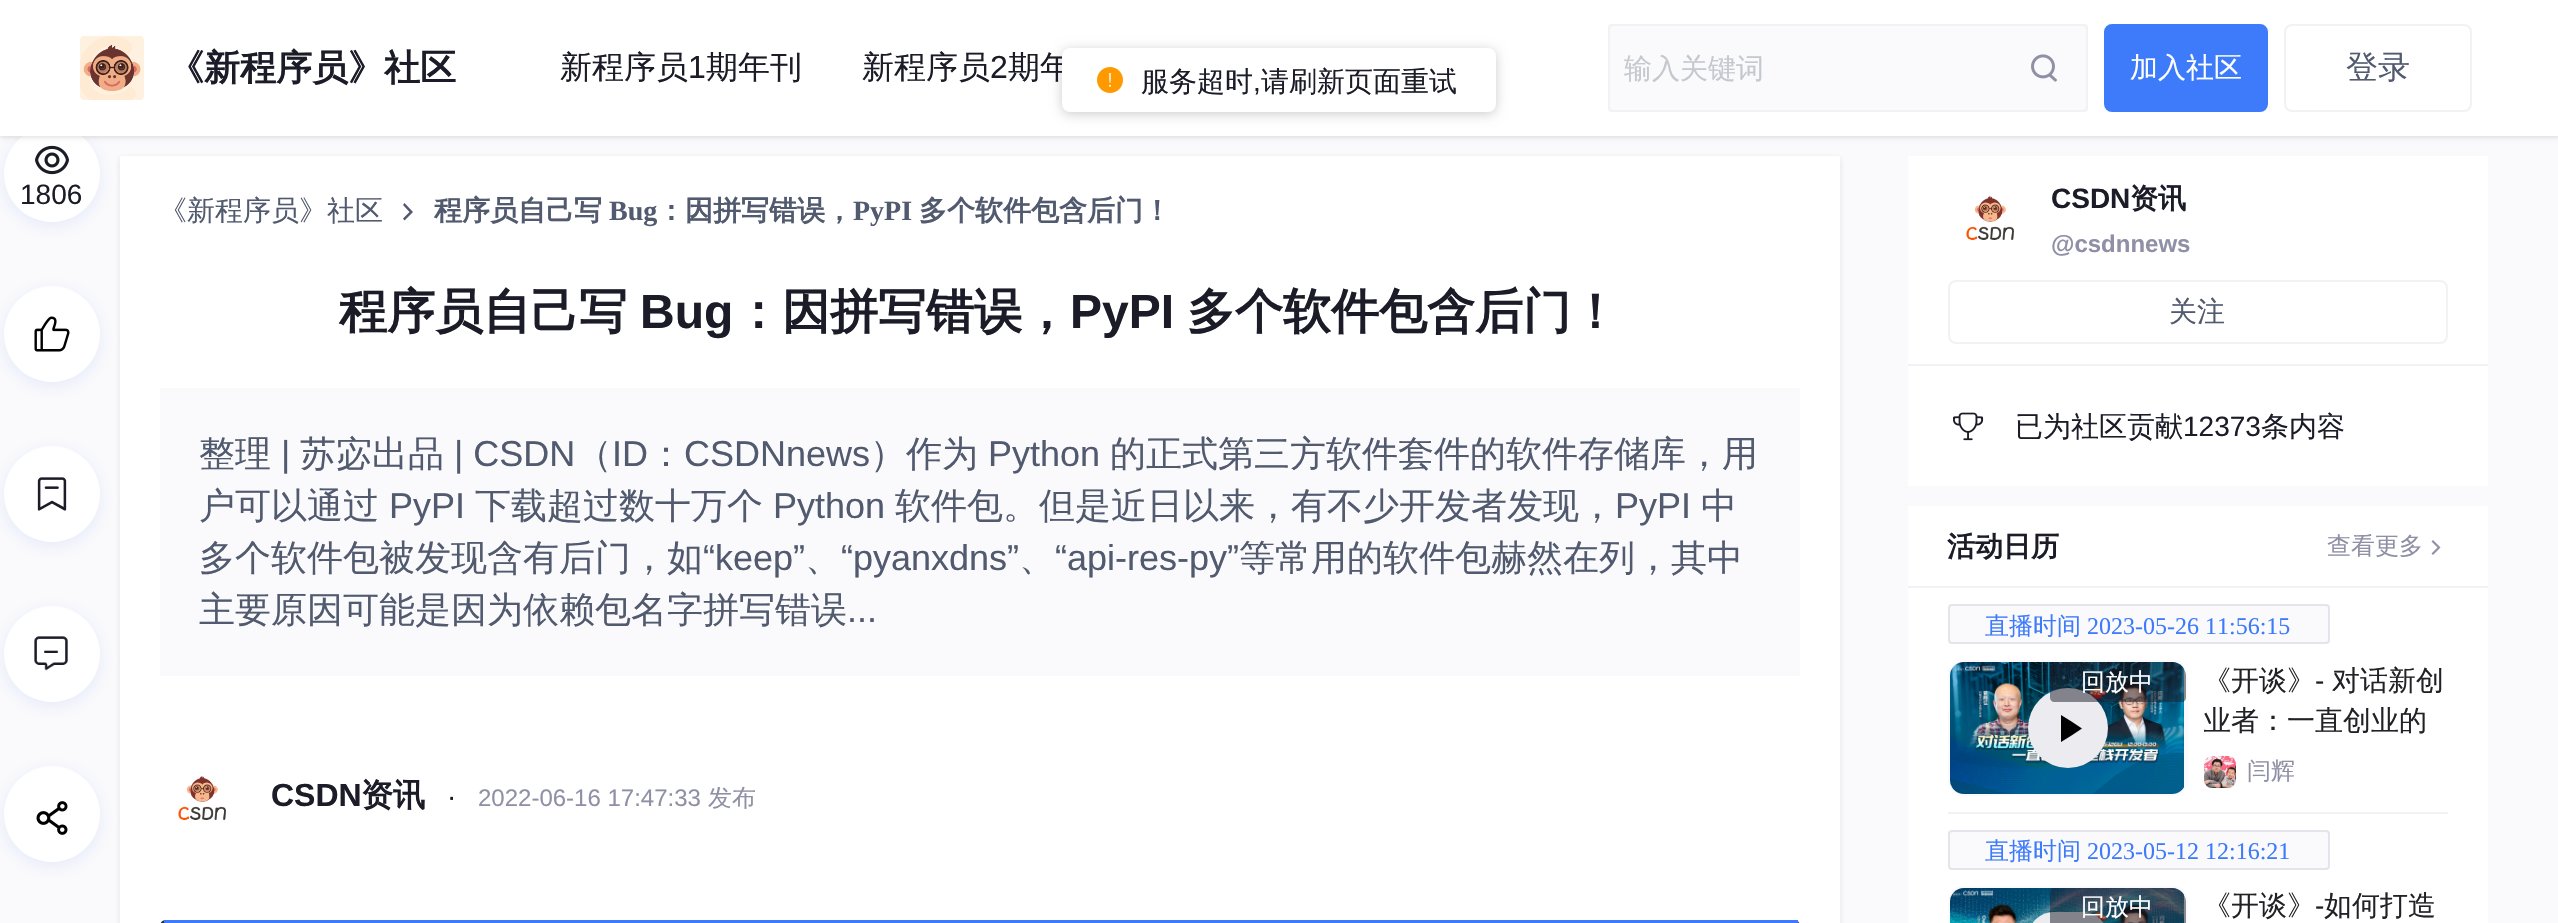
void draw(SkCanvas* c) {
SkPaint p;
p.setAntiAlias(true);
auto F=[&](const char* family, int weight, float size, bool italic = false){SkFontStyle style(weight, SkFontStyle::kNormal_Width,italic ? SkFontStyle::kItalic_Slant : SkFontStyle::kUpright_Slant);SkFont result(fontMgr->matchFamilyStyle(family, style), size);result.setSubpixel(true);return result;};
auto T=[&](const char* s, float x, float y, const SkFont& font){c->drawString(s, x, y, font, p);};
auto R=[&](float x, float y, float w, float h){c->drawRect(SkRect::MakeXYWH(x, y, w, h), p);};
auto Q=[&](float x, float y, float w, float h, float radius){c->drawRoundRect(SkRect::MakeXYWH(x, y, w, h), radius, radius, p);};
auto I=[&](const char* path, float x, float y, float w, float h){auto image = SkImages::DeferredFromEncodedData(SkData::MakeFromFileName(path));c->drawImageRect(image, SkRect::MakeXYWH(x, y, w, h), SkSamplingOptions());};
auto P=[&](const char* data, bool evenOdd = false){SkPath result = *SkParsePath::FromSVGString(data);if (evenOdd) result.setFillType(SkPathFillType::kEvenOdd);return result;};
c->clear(0xfffafafc);
p.setColor(0x1a1c1c28);
p.setMaskFilter(SkMaskFilter::MakeBlur(kNormal_SkBlurStyle, 3));
c->drawRect(SkRect::MakeXYWH(120,158,1720,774),p);
p.setMaskFilter(nullptr);
p.setColor(0xffffffff);
R(120,156,1720,767);
p.setColor(0x1a2f5bea);
p.setMaskFilter(SkMaskFilter::MakeBlur(kNormal_SkBlurStyle, 8));
c->drawRoundRect(SkRect::MakeXYWH(4,130,96,96),48,48,p);
p.setMaskFilter(nullptr);
p.setColor(0xffffffff);
c->drawCircle(52,174,48,p);
p.setColor(0x1a000000);
p.setMaskFilter(SkMaskFilter::MakeBlur(kNormal_SkBlurStyle, 2));
c->drawRect(SkRect::MakeXYWH(0,2,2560,136),p);
p.setMaskFilter(nullptr);
p.setColor(0xffffffff);
R(0,0,2558,136);
I("1.png",80,36,64,64);
auto f1 = F("WenQuanYi Zen Hei",700,36);
p.setColor(0xff1c1c28);
T("《新程序员》社区",168,80,f1);
auto f2 = F("WenQuanYi Zen Hei",500,32);
T("新程序员",560,78,f2);
auto f3 = F("Liberation Sans",400,32);
T("1",688,78,f3);
T("期年刊",706,78,f2);
T("新程序员",862,78,f2);
T("2",990,78,f3);
T("期年",1008,78,f2);
p.setColor(0xfffafafc);
c->drawRoundRect(SkRect::MakeXYWH(1609,25,478,86),3,3,p);
p.setStroke(true);
p.setStrokeWidth(2);
p.setColor(0xfff2f2f5);
c->drawRoundRect(SkRect::MakeXYWH(1609,25,478,86),3,3,p);
auto f4 = F("WenQuanYi Zen Hei",500,28);
p.setStroke(false);
p.setColor(0xffc5c8ce);
T("输入关键词",1624,78,f4);
I("2.png",2031,54,26,28);
p.setColor(0xff3e7bfa);
c->drawRoundRect(SkRect::MakeXYWH(2105,25,162,86),7,7,p);
p.setStroke(true);
c->drawRoundRect(SkRect::MakeXYWH(2105,25,162,86),7,7,p);
p.setStroke(false);
p.setColor(0xffffffff);
T("加入社区",2130,77,f4);
p.setStroke(true);
p.setColor(0xfff2f2f5);
c->drawRoundRect(SkRect::MakeXYWH(2285,25,186,86),7,7,p);
p.setStroke(false);
p.setColor(0xff515a6e);
T("登录",2346,78,f2);
I("3.png",35,145,34,30);
auto f5 = F("Liberation Sans",400,28);
p.setColor(0xff1c1c28);
T("1806",20,204,f5);
p.setColor(0x1a2f5bea);
p.setMaskFilter(SkMaskFilter::MakeBlur(kNormal_SkBlurStyle, 8));
c->drawRoundRect(SkRect::MakeXYWH(4,290,96,96),48,48,p);
p.setMaskFilter(nullptr);
p.setColor(0xffffffff);
c->drawCircle(52,334,48,p);
I("4.png",34,316,36,36);
p.setColor(0x1a2f5bea);
p.setMaskFilter(SkMaskFilter::MakeBlur(kNormal_SkBlurStyle, 8));
c->drawRoundRect(SkRect::MakeXYWH(4,450,96,96),48,48,p);
p.setMaskFilter(nullptr);
p.setColor(0xffffffff);
c->drawCircle(52,494,48,p);
I("5.png",37,477,30,34);
p.setColor(0x1a2f5bea);
p.setMaskFilter(SkMaskFilter::MakeBlur(kNormal_SkBlurStyle, 8));
c->drawRoundRect(SkRect::MakeXYWH(4,610,96,96),48,48,p);
p.setMaskFilter(nullptr);
p.setColor(0xffffffff);
c->drawCircle(52,654,48,p);
I("6.png",34,636,34,35);
p.setColor(0x1a2f5bea);
p.setMaskFilter(SkMaskFilter::MakeBlur(kNormal_SkBlurStyle, 8));
c->drawRoundRect(SkRect::MakeXYWH(4,770,96,96),48,48,p);
p.setMaskFilter(nullptr);
p.setColor(0xffffffff);
c->drawCircle(52,814,48,p);
I("7.png",36,801,32,34);
p.setColor(0xff515a6e);
T("《新程序员》社区",159,220,f4);
p.setColor(0xff555770);
c->drawPath(P("M409.5 212l-6.5 6.5l1.5 2l8.5-8.5l-8.5-9l-1.5 2z"),p);
auto f6 = F("WenQuanYi Zen Hei",700,28);
p.setColor(0xff515a6e);
T("程序员自己写",434,220,f6);
auto f7 = F("Liberation Serif",700,28);
T("Bug",609,220,f7);
T("：因拼写错误，",657,220,f6);
T("PyPI",853,220,f7);
T("多个软件包含后门！",919,220,f6);
auto f8 = F("WenQuanYi Zen Hei",700,48);
p.setColor(0xff1c1c28);
T("程序员自己写",339,328,f8);
auto f9 = F("Liberation Sans",700,48);
T("Bug",640,328,f9);
T("：因拼写错误，",734,328,f8);
T("PyPI",1070,328,f9);
T("多个软件包含后门！",1187,328,f8);
p.setColor(0xfffafafc);
R(160,388,1640,288);
auto f10 = F("WenQuanYi Zen Hei",500,36);
p.setColor(0xff515a6e);
T("整理",199,466,f10);
auto f11 = F("Liberation Sans",400,36);
T("|",281,466,f11);
T("苏宓出品",300,466,f10);
T("| CSDN",454,466,f11);
T("（",576,466,f10);
T("ID",612,466,f11);
T("：",648,466,f10);
T("CSDNnews",684,466,f11);
T("）作为",870,466,f10);
T("Python",988,466,f11);
T("的正式第三方软件套件的软件存储库，用",1110,466,f10);
T("户可以通过",199,518,f10);
T("PyPI",389,518,f11);
T("下载超过数十万个",475,518,f10);
T("Python",773,518,f11);
T("软件包。但是近日以来，有不少开发者发现，",895,518,f10);
T("PyPI",1615,518,f11);
T("中",1701,518,f10);
T("多个软件包被发现含有后门，如",199,570,f10);
T("“keep”",703,570,f11);
T("、",805,570,f10);
T("“pyanxdns”",841,570,f11);
T("、",1019,570,f10);
T("“api-res-py”",1055,570,f11);
T("等常用的软件包赫然在列，其中",1239,570,f10);
T("主要原因可能是因为依赖包名字拼写错误",199,622,f10);
T("...",847,622,f11);
I("8.png",178,776,48,44);
auto f12 = F("Liberation Sans",700,32);
p.setColor(0xff1c1c28);
T("CSDN",271,806,f12);
auto f13 = F("WenQuanYi Zen Hei",700,32);
T("资讯",361,806,f13);
T("·",447,806,f5);
auto f14 = F("Liberation Sans",400,24);
p.setColor(0xff8f90a6);
T("2022-06-16 17:47:33",478,806,f14);
auto f15 = F("WenQuanYi Zen Hei",500,24);
T("发布",708,806,f15);
p.setColor(0xff28293d);
c->drawPath(P("M166 920h1628c3.5 0 6 2.5 6 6v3h-1640v-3c0-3.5 2.5-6 6-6z"),p);
p.setColor(0xff3e7bfa);
R(164,920,1634,3);
p.setColor(0xffffffff);
R(1908,156,580,330);
p.setColor(0xfff2f2f5);
R(1908,364,580,2);
I("9.png",1966,196,48,44);
auto f16 = F("Liberation Sans",700,28);
p.setColor(0xff1c1c28);
T("CSDN",2051,208,f16);
T("资讯",2130,208,f6);
auto f17 = F("Liberation Sans",700,24);
p.setColor(0xff8f90a6);
T("@csdnnews",2051,252,f17);
p.setStroke(true);
p.setColor(0xfff2f2f5);
c->drawRoundRect(SkRect::MakeXYWH(1949,281,498,62),7,7,p);
p.setStroke(false);
p.setColor(0xff515a6e);
T("关注",2169,321,f4);
I("10.png",1953,412,31,29);
p.setColor(0xff1c1c28);
T("已为社区贡献",2015,436,f4);
T("12373",2183,436,f5);
T("条内容",2261,436,f4);
p.setColor(0xffffffff);
R(1908,506,580,417);
p.setColor(0xfff2f2f5);
R(1908,586,580,2);
p.setColor(0xff1c1c28);
T("活动日历",1947,556,f6);
p.setColor(0xff8f90a6);
T("查看更多",2327,554,f15);
I("11.png",2431,540,10,15);
p.setColor(0xfff2f2f5);
R(1948,812,500,2);
p.setColor(0xfffafafc);
c->drawRoundRect(SkRect::MakeXYWH(1949,605,380,38),3,3,p);
p.setStroke(true);
p.setColor(0xffe4e4eb);
c->drawRoundRect(SkRect::MakeXYWH(1949,605,380,38),3,3,p);
p.setStroke(false);
p.setColor(0xff3e7bfa);
T("直播时间",1985,634,f15);
auto f18 = F("Liberation Serif",400,24);
T("2023-05-26 11:56:15",2087,634,f18);
p.setColor(0xfffafafc);
Q(1948,660,240,136,16);
I("12.png",1950,662,234,132);
p.setColor(0xffebebf0);
c->drawCircle(2068,728,40,p);
p.setColor(0x801c1c28);
c->drawPath(P("M2054 662h118c7.5 0 14 6.5 14 14v22c0 2-2 4-4 4h-128c-2 0-4-2-4-4v-32c0-2 2-4 4-4z"),p);
p.setColor(0xffffffff);
T("回放中",2081,690,f15);
p.setColor(0xff000000);
c->drawPath(P("M2071.5 721.5l10.5 7l-10.5 7zm-10.5-6.5l10.5 6.5v14l-10.5 6.5z"),p);
p.setColor(0xff222226);
T("《开谈》",2203,690,f4);
T("-",2315,690,f5);
T("对话新创",2332,690,f4);
c->save();
c->clipRect(SkRect::MakeXYWH(2204,660,244,80));
T("业者：一直创业的",2203,730,f4);
c->restore();
I("13.png",2204,756,32,32);
p.setColor(0xff8f90a6);
T("闫辉",2247,779,f15);
p.setColor(0xfffafafc);
c->drawRoundRect(SkRect::MakeXYWH(1949,831,380,38),3,3,p);
p.setStroke(true);
p.setColor(0xffe4e4eb);
c->drawRoundRect(SkRect::MakeXYWH(1949,831,380,38),3,3,p);
p.setStroke(false);
p.setColor(0xff3e7bfa);
T("直播时间",1985,859,f15);
T("2023-05-12 12:16:21",2087,859,f18);
p.setColor(0xfffafafc);
Q(1948,886,240,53,16);
I("14.png",1950,888,234,35);
p.setColor(0xffebebf0);
Q(2028,912,80,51,40);
p.setColor(0x801c1c28);
c->drawPath(P("M2054 888h118c7.5 0 14 6.5 14 14v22c0 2-2 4-4 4h-128c-2 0-4-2-4-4v-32c0-2 2-4 4-4z"),p);
p.setColor(0xffffffff);
T("回放中",2081,915,f15);
p.setColor(0xff222226);
T("《开谈》",2203,915,f4);
T("-",2315,915,f5);
T("如何打造",2324,915,f4);
p.setColor(0x33000000);
p.setMaskFilter(SkMaskFilter::MakeBlur(kNormal_SkBlurStyle, 6));
c->drawRoundRect(SkRect::MakeXYWH(1062,50,434,64),8,8,p);
p.setMaskFilter(nullptr);
p.setColor(0xffffffff);
Q(1062,48,434,64,8);
I("15.png",1097,67,26,26);
p.setColor(0xff1c1c28);
T("服务超时",1141,91,f4);
T(",",1253,91,f5);
T("请刷新页面重试",1261,91,f4);
}
